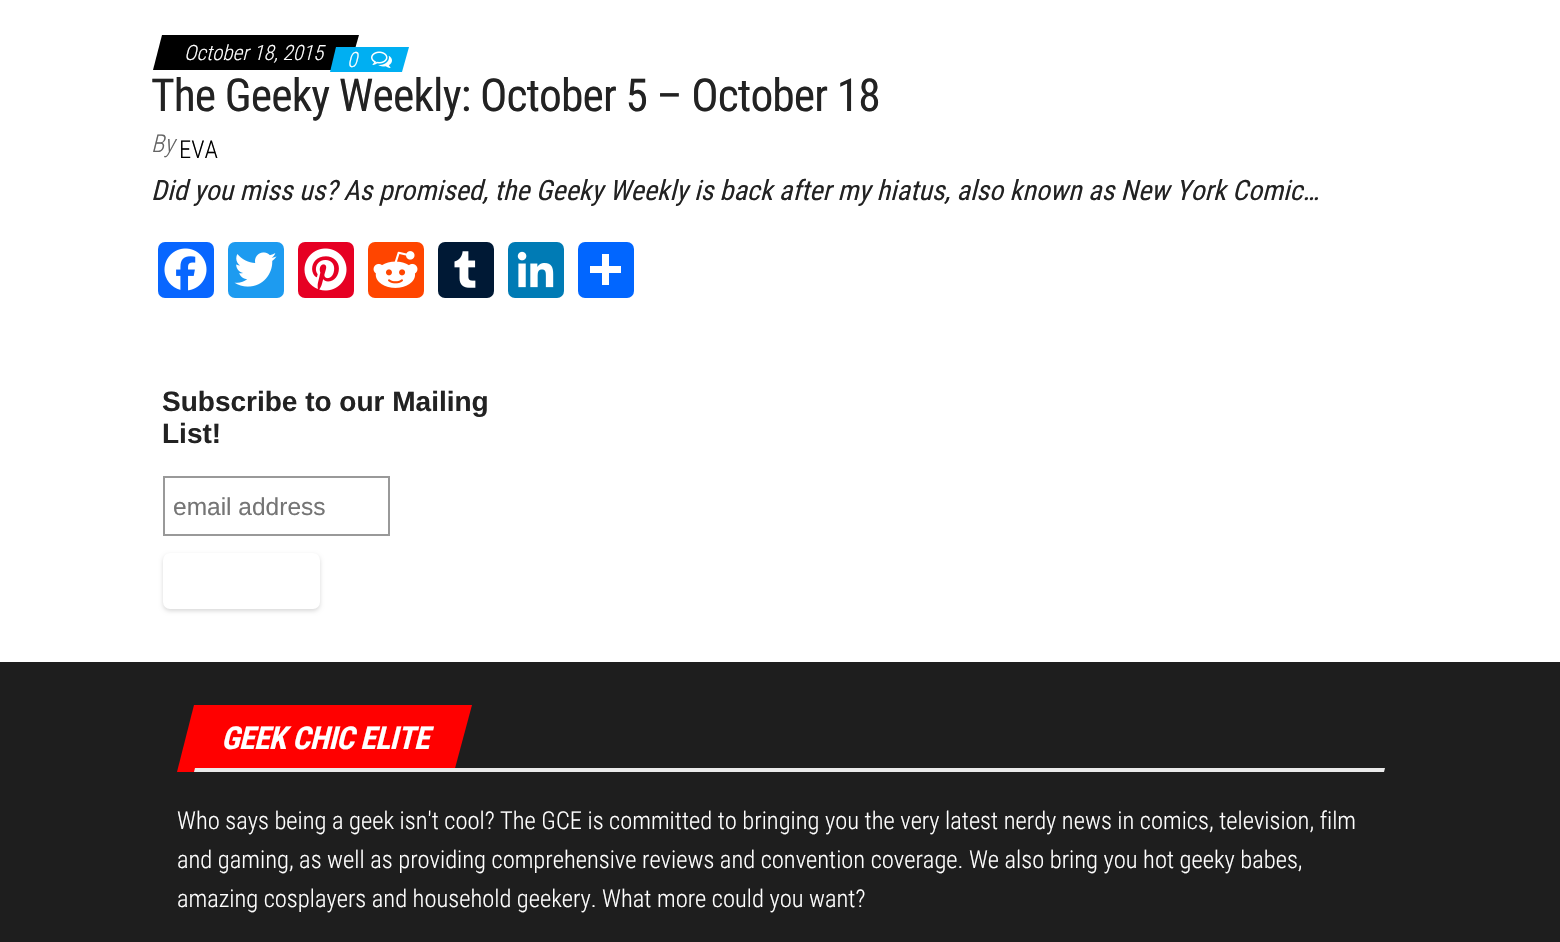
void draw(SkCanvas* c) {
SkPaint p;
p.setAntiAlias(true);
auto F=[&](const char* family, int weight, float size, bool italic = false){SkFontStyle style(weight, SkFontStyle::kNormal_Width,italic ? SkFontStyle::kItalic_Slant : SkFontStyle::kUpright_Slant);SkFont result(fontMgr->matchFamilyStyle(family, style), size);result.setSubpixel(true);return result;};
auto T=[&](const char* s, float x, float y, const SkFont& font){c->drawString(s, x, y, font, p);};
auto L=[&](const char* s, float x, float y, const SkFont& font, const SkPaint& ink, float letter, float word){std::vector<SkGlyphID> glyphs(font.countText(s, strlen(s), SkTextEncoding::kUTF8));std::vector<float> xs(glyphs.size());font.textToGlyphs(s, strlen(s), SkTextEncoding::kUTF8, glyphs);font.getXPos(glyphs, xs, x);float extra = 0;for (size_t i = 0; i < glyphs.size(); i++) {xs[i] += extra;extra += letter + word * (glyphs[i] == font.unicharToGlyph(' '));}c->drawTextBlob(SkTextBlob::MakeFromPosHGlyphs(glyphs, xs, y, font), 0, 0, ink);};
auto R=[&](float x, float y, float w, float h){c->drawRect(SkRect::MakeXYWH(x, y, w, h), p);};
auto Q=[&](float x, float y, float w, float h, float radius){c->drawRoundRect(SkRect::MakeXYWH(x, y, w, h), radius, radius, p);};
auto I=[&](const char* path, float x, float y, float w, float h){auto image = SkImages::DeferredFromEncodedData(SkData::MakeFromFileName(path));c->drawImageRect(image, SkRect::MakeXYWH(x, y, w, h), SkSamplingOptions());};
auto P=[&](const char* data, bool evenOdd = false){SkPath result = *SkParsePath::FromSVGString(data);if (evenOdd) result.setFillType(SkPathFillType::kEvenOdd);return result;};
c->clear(0xffffffff);
p.setColor(0xff000000);
c->drawPath(P("M162 35h197l-10 35h-196z"),p);
auto f1 = F("Roboto Condensed",300,21,true);
p.setColor(0xffffffff);
T("October 18, 2015",184,60,f1);
p.setColor(0xff00aff2);
c->drawPath(P("M336 47h73l-7 25h-72z"),p);
p.setColor(0xffffffff);
T("0",347,67,f1);
I("1.png",371,51,21,17);
auto f2 = F("Roboto Condensed",400,45.5);
p.setColor(0xff222222);
L("The Geeky Weekly: October 5 – October 18",151,111,f2,p,-.9,0);
auto f3 = F("Roboto Condensed",300,24.5,true);
p.setColor(0xff646464);
T("By",151,152,f3);
auto f4 = F("Roboto Condensed",300,24.5);
p.setColor(0xff000000);
T("EVA",179,158,f4);
auto f5 = F("Roboto Condensed",400,28,true);
p.setColor(0xff222222);
T("Did you miss us? As promised, the Geeky Weekly is back after my hiatus, also known as New York Comic…",151,200,f5);
p.setColor(0xff0866ff);
Q(158,242,56,56,7);
I("2.png",164,248,43,43);
p.setColor(0xff1d9bf0);
Q(228,242,56,56,7);
I("3.png",234,252,43,35);
p.setColor(0xffe60023);
Q(298,242,56,56,7);
I("4.png",304,248,43,43);
p.setColor(0xffff4500);
Q(368,242,56,56,7);
I("5.png",373,251,45,37);
p.setColor(0xff001935);
Q(438,242,56,56,7);
I("6.png",454,251,22,37);
p.setColor(0xff007bb5);
Q(508,242,56,56,7);
I("7.png",517,251,37,37);
p.setColor(0xff0166ff);
Q(578,242,56,56,7);
p.setColor(0xffffffff);
R(602,254,7,31);
R(590,266,31,7);
auto f6 = F("Liberation Sans",700,28);
p.setColor(0xff222222);
T("Subscribe to our Mailing",162,411,f6);
T("List!",162,443,f6);
p.setStroke(true);
p.setStrokeWidth(2);
p.setColor(0xff999999);
c->drawRect(SkRect::MakeXYWH(164,477,225,58),p);
auto f7 = F("Liberation Sans",400,24.5);
p.setStroke(false);
p.setColor(0xff757575);
T("email address",173,515,f7);
p.setColor(0x26000000);
p.setMaskFilter(SkMaskFilter::MakeBlur(kNormal_SkBlurStyle, 2));
c->drawRoundRect(SkRect::MakeXYWH(163,555,157,56),7,7,p);
p.setMaskFilter(nullptr);
p.setColor(0xffffffff);
Q(163,553,157,56,7);
p.setColor(0xff1e1e1e);
R(0,662,1560,280);
p.setColor(0xffff0000);
c->drawPath(P("M194 705h278l-18 67h-277z"),p);
auto f8 = F("Roboto Condensed",700,31.5,true);
p.setColor(0xffffffff);
L("GEEK CHIC ELITE",221,749,f8,p,-.6,0);
p.setColor(0xffeaeaea);
c->drawPath(P("M195 768h1190l-1 4h-1190z"),p);
p.setColor(0xffffffff);
T("Who says being a geek isn't cool? The GCE is committed to bringing you the very latest nerdy news in comics, television, film",177,829,f4);
T("and gaming, as well as providing comprehensive reviews and convention coverage. We also bring you hot geeky babes,",177,868,f4);
T("amazing cosplayers and household geekery. What more could you want?",177,907,f4);
}
